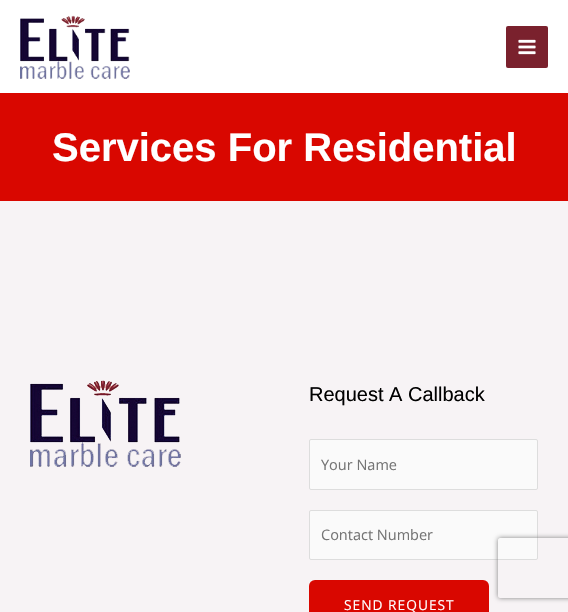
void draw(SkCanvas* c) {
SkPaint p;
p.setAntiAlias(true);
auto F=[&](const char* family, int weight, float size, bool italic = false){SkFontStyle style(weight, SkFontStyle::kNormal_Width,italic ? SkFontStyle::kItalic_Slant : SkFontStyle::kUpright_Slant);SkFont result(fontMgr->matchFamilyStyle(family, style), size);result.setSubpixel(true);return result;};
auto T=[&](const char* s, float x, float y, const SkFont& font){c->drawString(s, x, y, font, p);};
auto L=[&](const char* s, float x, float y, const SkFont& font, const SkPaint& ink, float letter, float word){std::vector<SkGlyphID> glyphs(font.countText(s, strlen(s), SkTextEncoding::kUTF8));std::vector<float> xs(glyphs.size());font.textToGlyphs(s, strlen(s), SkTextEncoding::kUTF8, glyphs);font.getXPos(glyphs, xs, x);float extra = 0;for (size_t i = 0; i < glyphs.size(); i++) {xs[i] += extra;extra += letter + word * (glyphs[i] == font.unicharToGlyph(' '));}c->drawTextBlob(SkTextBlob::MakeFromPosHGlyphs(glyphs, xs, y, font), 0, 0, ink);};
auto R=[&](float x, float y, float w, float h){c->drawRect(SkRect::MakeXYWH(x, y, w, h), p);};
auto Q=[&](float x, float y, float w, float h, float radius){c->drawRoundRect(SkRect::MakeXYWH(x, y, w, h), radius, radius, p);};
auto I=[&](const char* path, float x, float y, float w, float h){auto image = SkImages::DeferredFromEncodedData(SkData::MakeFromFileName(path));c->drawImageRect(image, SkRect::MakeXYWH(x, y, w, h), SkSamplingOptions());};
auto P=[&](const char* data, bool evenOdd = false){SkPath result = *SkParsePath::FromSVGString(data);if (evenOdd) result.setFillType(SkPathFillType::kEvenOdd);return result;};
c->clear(0xfff7f3f5);
p.setColor(0xffffffff);
R(0,0,568,93);
I("1.png",20,15,110,64);
p.setColor(0xff7a212d);
Q(506,26,42,42,2);
I("2.png",518,39,18,16);
p.setColor(0xffd90700);
R(0,93,568,108);
auto f1 = F("Liberation Sans",700,40);
p.setColor(0xffffffff);
T("Services For Residential",52,161,f1);
I("3.png",30,380,151,87);
auto f2 = F("Liberation Sans",400,20);
p.setColor(0xff000000);
T("Request A Callback",309,401,f2);
p.setColor(0xfffafafa);
c->drawRoundRect(SkRect::MakeXYWH(309.5,439.5,228,50),1.5,1.5,p);
p.setStroke(true);
p.setStrokeWidth(1);
p.setColor(0xffdddddd);
c->drawRoundRect(SkRect::MakeXYWH(309.5,439.5,228,50),1.5,1.5,p);
auto f3 = F("Open Sans",400,14.5);
p.setStroke(false);
p.setColor(0xff757575);
T("Your Name",321,470,f3);
p.setColor(0xfffafafa);
c->drawRoundRect(SkRect::MakeXYWH(309.5,510.5,228,49),1.5,1.5,p);
p.setStroke(true);
p.setColor(0xffdddddd);
c->drawRoundRect(SkRect::MakeXYWH(309.5,510.5,228,49),1.5,1.5,p);
p.setStroke(false);
p.setColor(0xff757575);
T("Contact Number",321,540,f3);
p.setColor(0xffd90700);
Q(309,580,180,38,6);
auto f4 = F("Open Sans",400,13.75);
p.setColor(0xffffffff);
L("SEND REQUEST",344,610,f4,p,1,0);
c->save();
c->clipPath(P("M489 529h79v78h-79zm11 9h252c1 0 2 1 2 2v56c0 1-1 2-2 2h-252c-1 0-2-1-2-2v-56c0-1 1-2 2-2z",true),true);
p.setColor(0xff808080);
p.setMaskFilter(SkMaskFilter::MakeBlur(kNormal_SkBlurStyle, 2.5));
c->drawRoundRect(SkRect::MakeXYWH(498,538,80,60),2,2,p);
p.setMaskFilter(nullptr);
c->restore();
}
